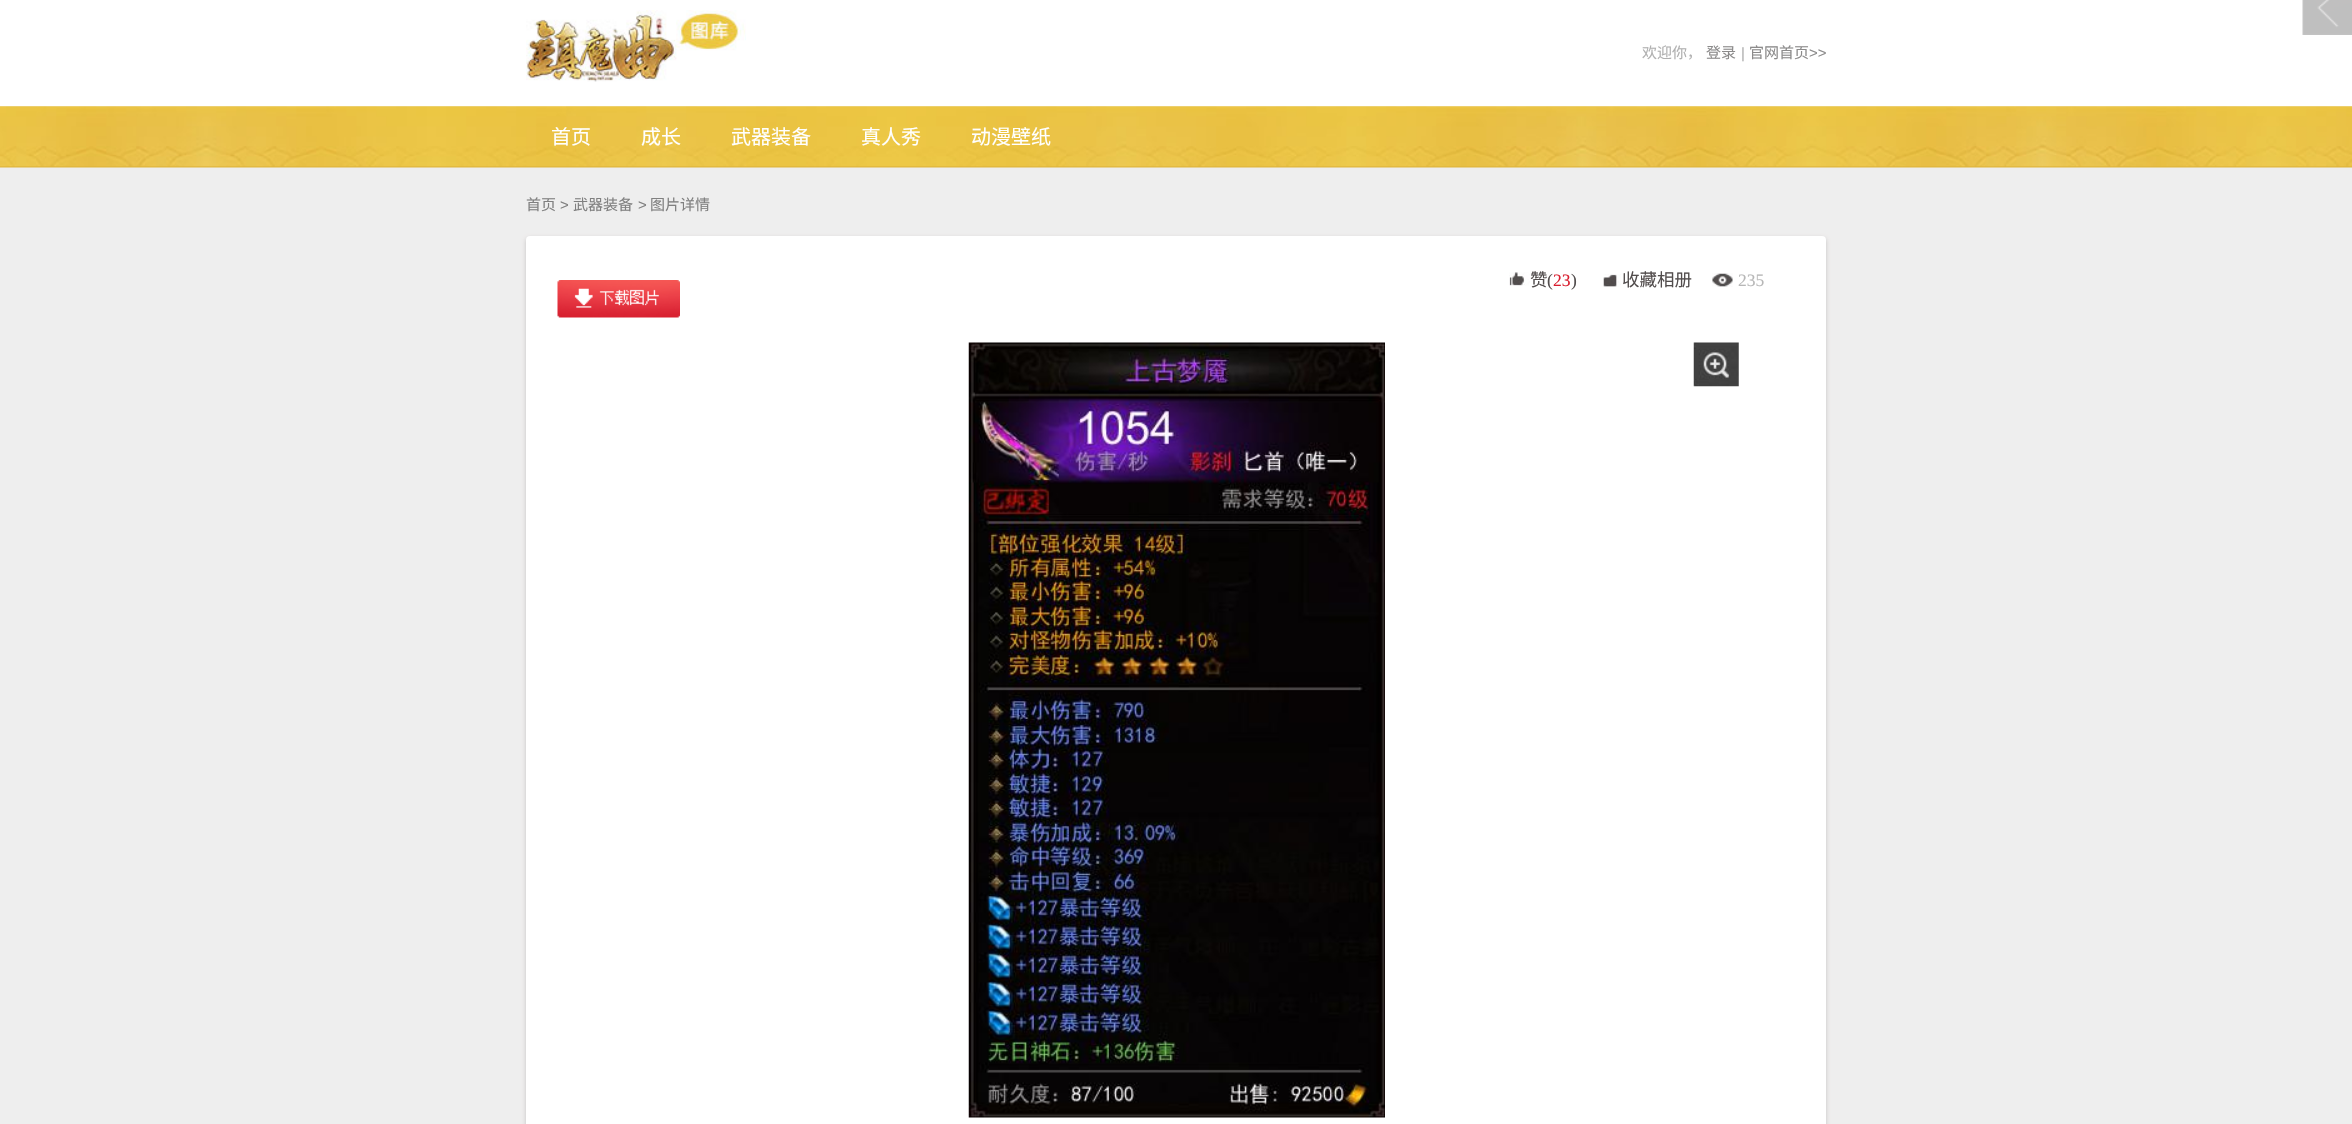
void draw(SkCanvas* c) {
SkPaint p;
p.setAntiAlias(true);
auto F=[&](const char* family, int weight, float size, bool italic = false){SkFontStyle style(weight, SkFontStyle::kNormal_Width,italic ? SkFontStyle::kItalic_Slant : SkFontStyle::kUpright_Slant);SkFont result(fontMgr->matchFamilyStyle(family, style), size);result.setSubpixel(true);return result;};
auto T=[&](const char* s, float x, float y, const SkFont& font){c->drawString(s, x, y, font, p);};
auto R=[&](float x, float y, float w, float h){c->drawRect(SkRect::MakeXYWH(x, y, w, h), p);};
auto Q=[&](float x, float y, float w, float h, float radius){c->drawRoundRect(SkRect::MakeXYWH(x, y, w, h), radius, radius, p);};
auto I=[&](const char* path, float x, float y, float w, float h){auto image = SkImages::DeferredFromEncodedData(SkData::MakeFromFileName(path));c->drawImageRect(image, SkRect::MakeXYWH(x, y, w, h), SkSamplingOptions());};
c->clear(0xffeeeeee);
p.setColor(0xffffffff);
R(0,0,2352,106);
I("1.png",2302,0,50,35);
I("2.png",526,10,220,72);
auto f1 = F("Noto Sans CJK SC",400,15);
p.setColor(0xffb0b0b0);
T("欢迎你，",1642,58,f1);
p.setColor(0xff8c8b8b);
T("登录",1706,58,f1);
auto f2 = F("Liberation Sans",400,15);
p.setColor(0xffb0b0b0);
T("|",1741,58,f2);
p.setColor(0xff8c8b8b);
T("官网首页",1749,58,f1);
T(">>",1809,58,f2);
I("3.png",0,106,2352,62);
auto f3 = F("Noto Sans CJK SC",400,20);
p.setColor(0xffffffff);
T("首页",551,144,f3);
T("成长",641,144,f3);
T("武器装备",731,144,f3);
T("真人秀",861,144,f3);
T("动漫壁纸",971,144,f3);
p.setColor(0xff808080);
T("首页",526,210,f1);
T(">",560,210,f2);
T("武器装备",573,210,f1);
T(">",638,210,f2);
T("图片详情",650,210,f1);
p.setColor(0x2e040000);
p.setMaskFilter(SkMaskFilter::MakeBlur(kNormal_SkBlurStyle, 2));
c->drawRoundRect(SkRect::MakeXYWH(526,238,1300,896),4,4,p);
p.setMaskFilter(nullptr);
p.setColor(0xffffffff);
Q(526,236,1300,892,4);
I("4.png",557,280,123,38);
I("5.png",1509,272,21,14);
auto f4 = F("Noto Sans CJK SC",400,17.5);
p.setColor(0xff524d4d);
T("赞",1530,286,f4);
auto f5 = F("Liberation Serif",400,17.5);
T("(",1547,286,f5);
p.setColor(0xffd91d2e);
T("23",1553,286,f5);
p.setColor(0xff524d4d);
T(")",1571,286,f5);
I("6.png",1603,274,18,13);
T("收藏相册",1622,286,f4);
I("7.png",1712,273,21,14);
p.setColor(0xffb7b7b7);
T("235",1738,286,f5);
I("8.png",968,342,417,776);
I("9.png",1693,342,46,45);
}
